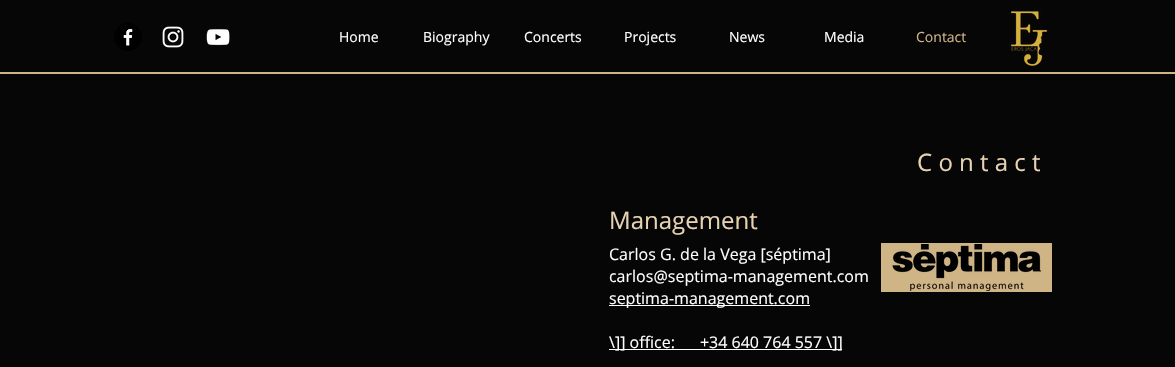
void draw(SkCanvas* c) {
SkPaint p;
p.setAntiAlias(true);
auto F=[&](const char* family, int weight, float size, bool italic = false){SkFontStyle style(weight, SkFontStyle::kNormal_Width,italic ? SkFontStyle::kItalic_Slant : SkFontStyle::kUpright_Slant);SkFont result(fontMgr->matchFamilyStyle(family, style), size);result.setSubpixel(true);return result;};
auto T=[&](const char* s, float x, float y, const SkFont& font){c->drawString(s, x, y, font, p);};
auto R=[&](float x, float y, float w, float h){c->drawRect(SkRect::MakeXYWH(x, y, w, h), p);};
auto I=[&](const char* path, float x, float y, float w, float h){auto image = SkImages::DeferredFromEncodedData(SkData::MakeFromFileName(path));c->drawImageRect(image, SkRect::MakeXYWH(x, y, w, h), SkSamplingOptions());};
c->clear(0xff070606);
I("1.png",114,23,28,28);
I("2.png",162,26,22,22);
I("3.png",206,29,24,17);
auto f1 = F("Open Sans",400,14);
p.setColor(0xffffffff);
T("Home",339,42,f1);
T("Biography",423,42,f1);
T("Concerts",524,42,f1);
T("Projects",624,42,f1);
T("News",729,42,f1);
T("Media",824,42,f1);
p.setColor(0xffcfb486);
T("Contact",916,42,f1);
I("4.png",1011,11,37,55);
R(0,72,1175,2);
auto f2 = F("Open Sans",400,24);
p.setColor(0xffe7d3b1);
T("C o n t a c t",917,171,f2);
T("Management",609,229,f2);
auto f3 = F("Open Sans",400,16);
p.setColor(0xffffffff);
T("Carlos G. de la Vega [séptima]",609,260,f3);
T("carlos@septima-management.com",609,282,f3);
R(609,305,201,1);
T("septima-management.com",609,304,f3);
R(609,349,233,1);
T("\\]] office:      +34 640 764 557 \\]]",609,348,f3);
p.setColor(0xffcfb486);
R(881,243,171,49);
I("5.png",892,244,150,47);
}
